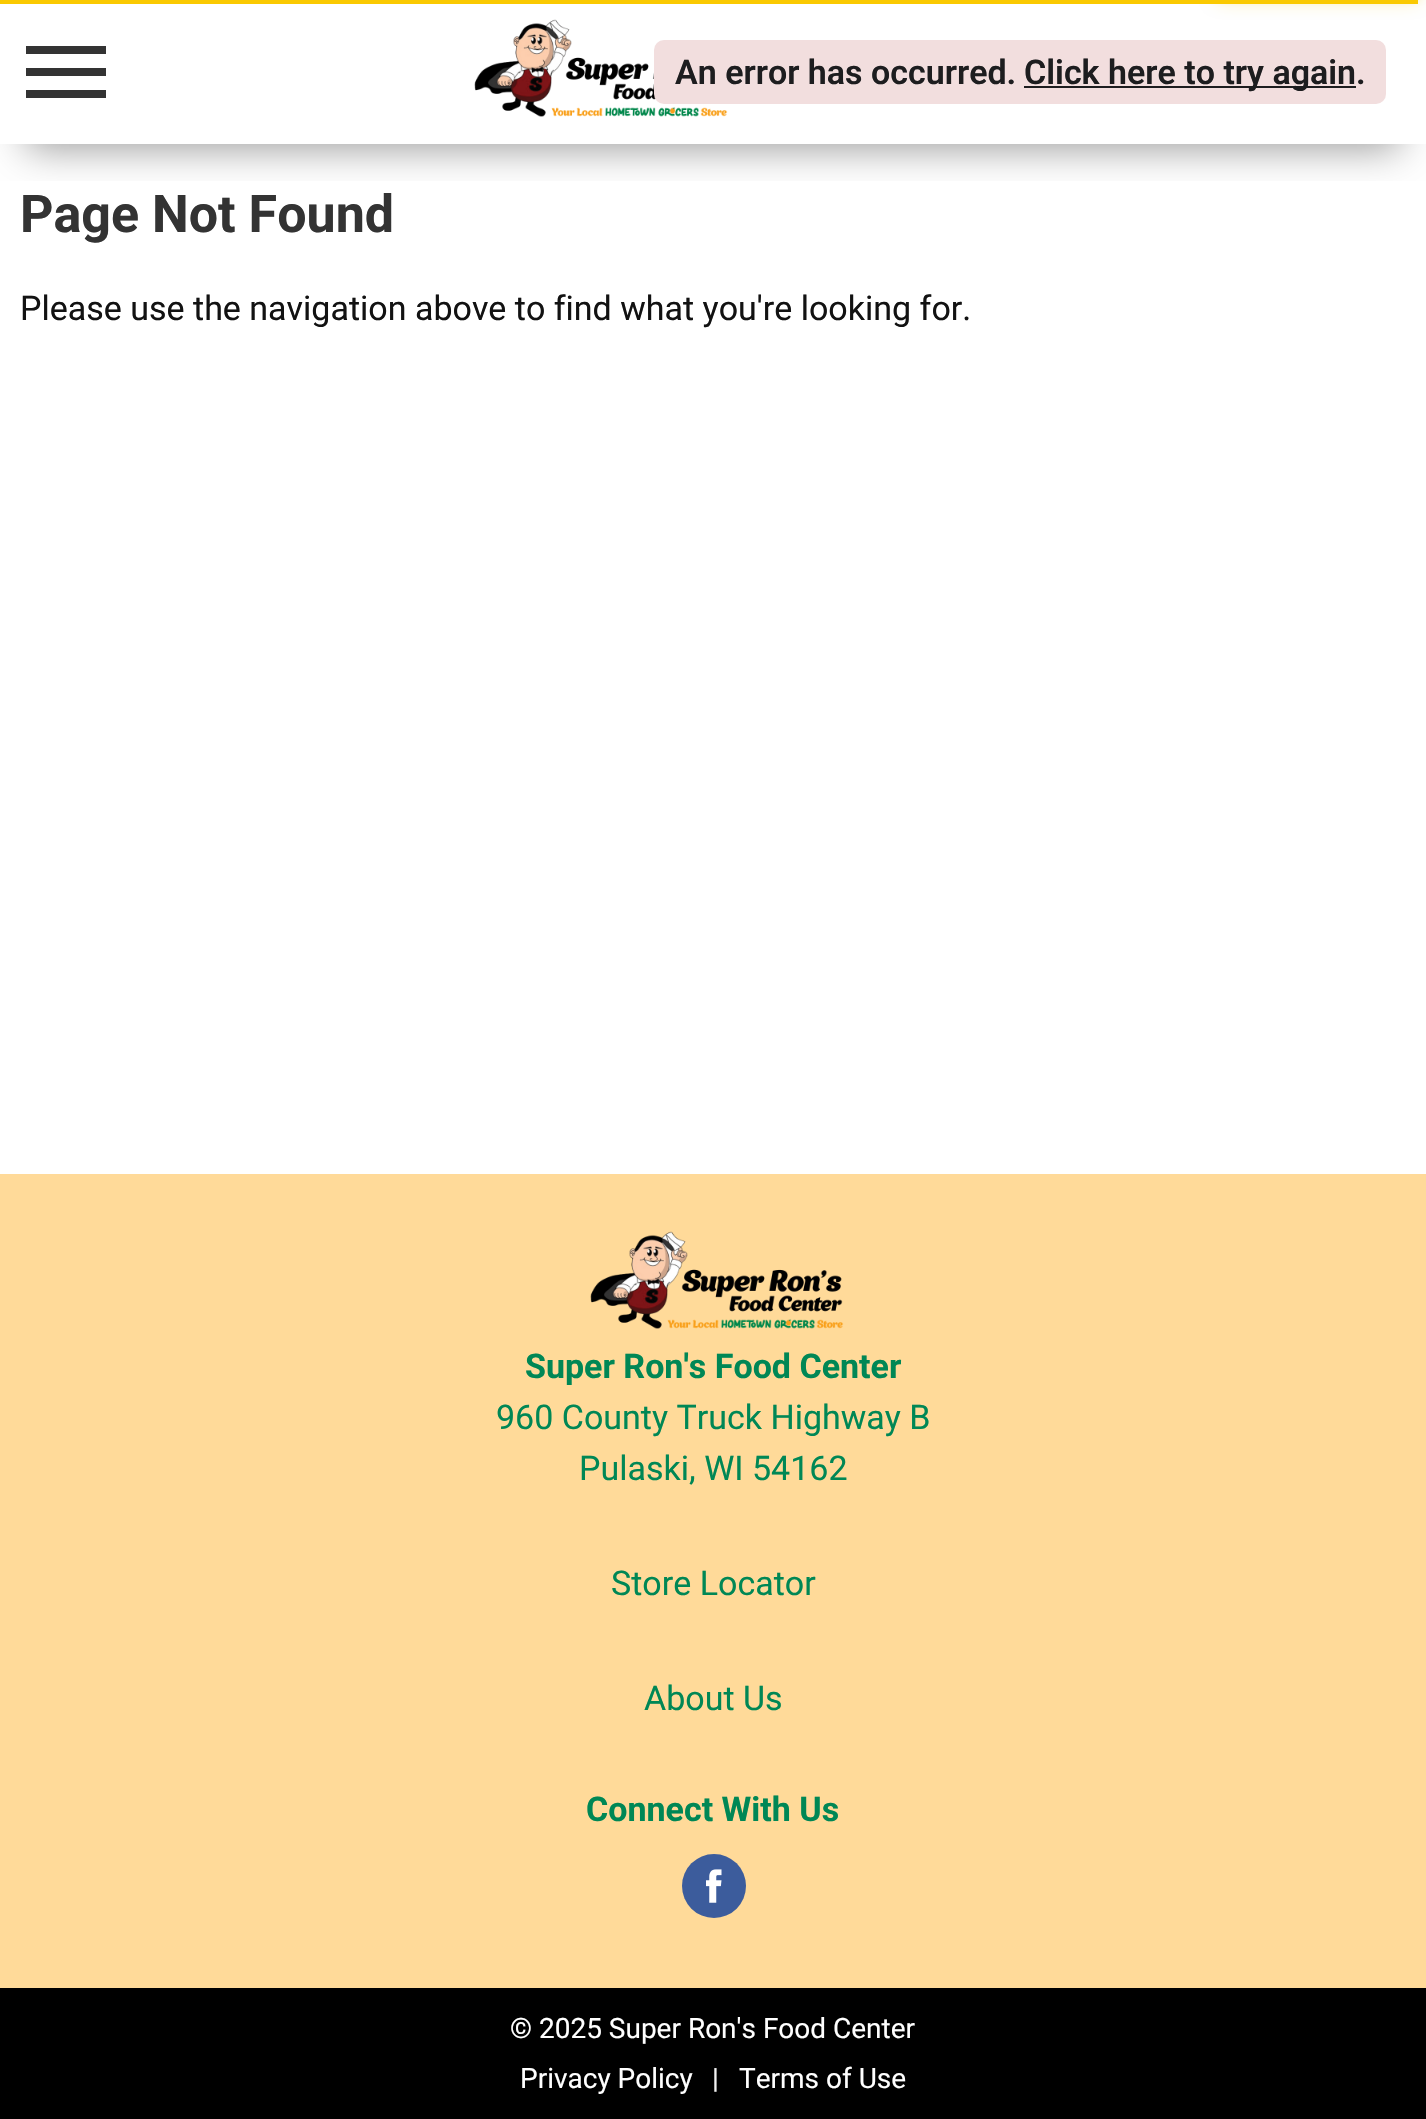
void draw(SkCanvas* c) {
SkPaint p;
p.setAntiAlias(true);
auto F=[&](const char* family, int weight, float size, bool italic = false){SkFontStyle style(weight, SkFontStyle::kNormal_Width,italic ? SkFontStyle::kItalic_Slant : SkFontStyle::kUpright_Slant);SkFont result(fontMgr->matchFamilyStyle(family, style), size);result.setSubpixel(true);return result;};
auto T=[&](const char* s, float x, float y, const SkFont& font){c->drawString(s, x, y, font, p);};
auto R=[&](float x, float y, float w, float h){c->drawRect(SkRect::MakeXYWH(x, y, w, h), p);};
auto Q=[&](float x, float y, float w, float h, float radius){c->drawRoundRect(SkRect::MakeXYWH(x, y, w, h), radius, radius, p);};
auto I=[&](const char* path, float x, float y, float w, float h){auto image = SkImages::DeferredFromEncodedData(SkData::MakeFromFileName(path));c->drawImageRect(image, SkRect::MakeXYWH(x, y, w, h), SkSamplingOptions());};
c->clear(0xffffffff);
c->save();
c->clipRect(SkRect::MakeXYWH(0,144,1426,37));
p.setColor(0x66000000);
p.setMaskFilter(SkMaskFilter::MakeBlur(kNormal_SkBlurStyle, 20));
c->drawRect(SkRect::MakeXYWH(26,56,1374,92),p);
p.setMaskFilter(nullptr);
c->restore();
p.setColor(0xfffac901);
R(0,0,1418,4);
p.setMaskFilter(SkMaskFilter::MakeBlur(kNormal_SkBlurStyle, 5));
c->drawRect(SkRect::MakeXYWH(1218,-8,200,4),p);
p.setMaskFilter(nullptr);
p.setMaskFilter(SkMaskFilter::MakeBlur(kNormal_SkBlurStyle, 10));
c->drawRect(SkRect::MakeXYWH(1218,-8,200,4),p);
p.setMaskFilter(nullptr);
I("1.png",474,19,254,98);
p.setColor(0xfff2dede);
Q(654,40,732,64,10);
auto f1 = F("Roboto",600,34);
p.setColor(0xff1d1d1f);
T("An error has occurred.",675,84,f1);
R(1024,86,332,2);
T("Click here to try again.",1024,84,f1);
p.setColor(0xff333333);
R(26,68,80,8);
R(26,46,80,8);
R(26,90,80,8);
auto f2 = F("Roboto",700,52);
T("Page Not Found",20,232,f2);
auto f3 = F("Roboto",400,34);
p.setColor(0xff121212);
T("Please use the navigation above to find what you're looking for.",20,320,f3);
p.setColor(0xffffda99);
R(0,1174,1426,814);
I("2.png",590,1231,254,98);
auto f4 = F("Roboto",700,34);
p.setColor(0xff008755);
T("Super Ron's Food Center",525,1378,f4);
T("960 County Truck Highway B",496,1429,f3);
T("Pulaski, WI 54162",579,1480,f3);
T("Store Locator",611,1595,f3);
T("About Us",644,1710,f3);
T("Connect With Us",586,1821,f4);
p.setColor(0xff3c5c9c);
c->drawCircle(714,1886,32,p);
I("3.png",706,1869,16,34);
p.setColor(0xff000000);
R(0,1988,1426,131);
auto f5 = F("Roboto",400,28);
p.setColor(0xffffffff);
T("© 2025 Super Ron's Food Center",510,2038,f5);
T("Privacy Policy",520,2088,f5);
p.setColor(0xfff2f2f2);
T("|",712,2088,f5);
p.setColor(0xffffffff);
T("Terms of Use",739,2088,f5);
}
